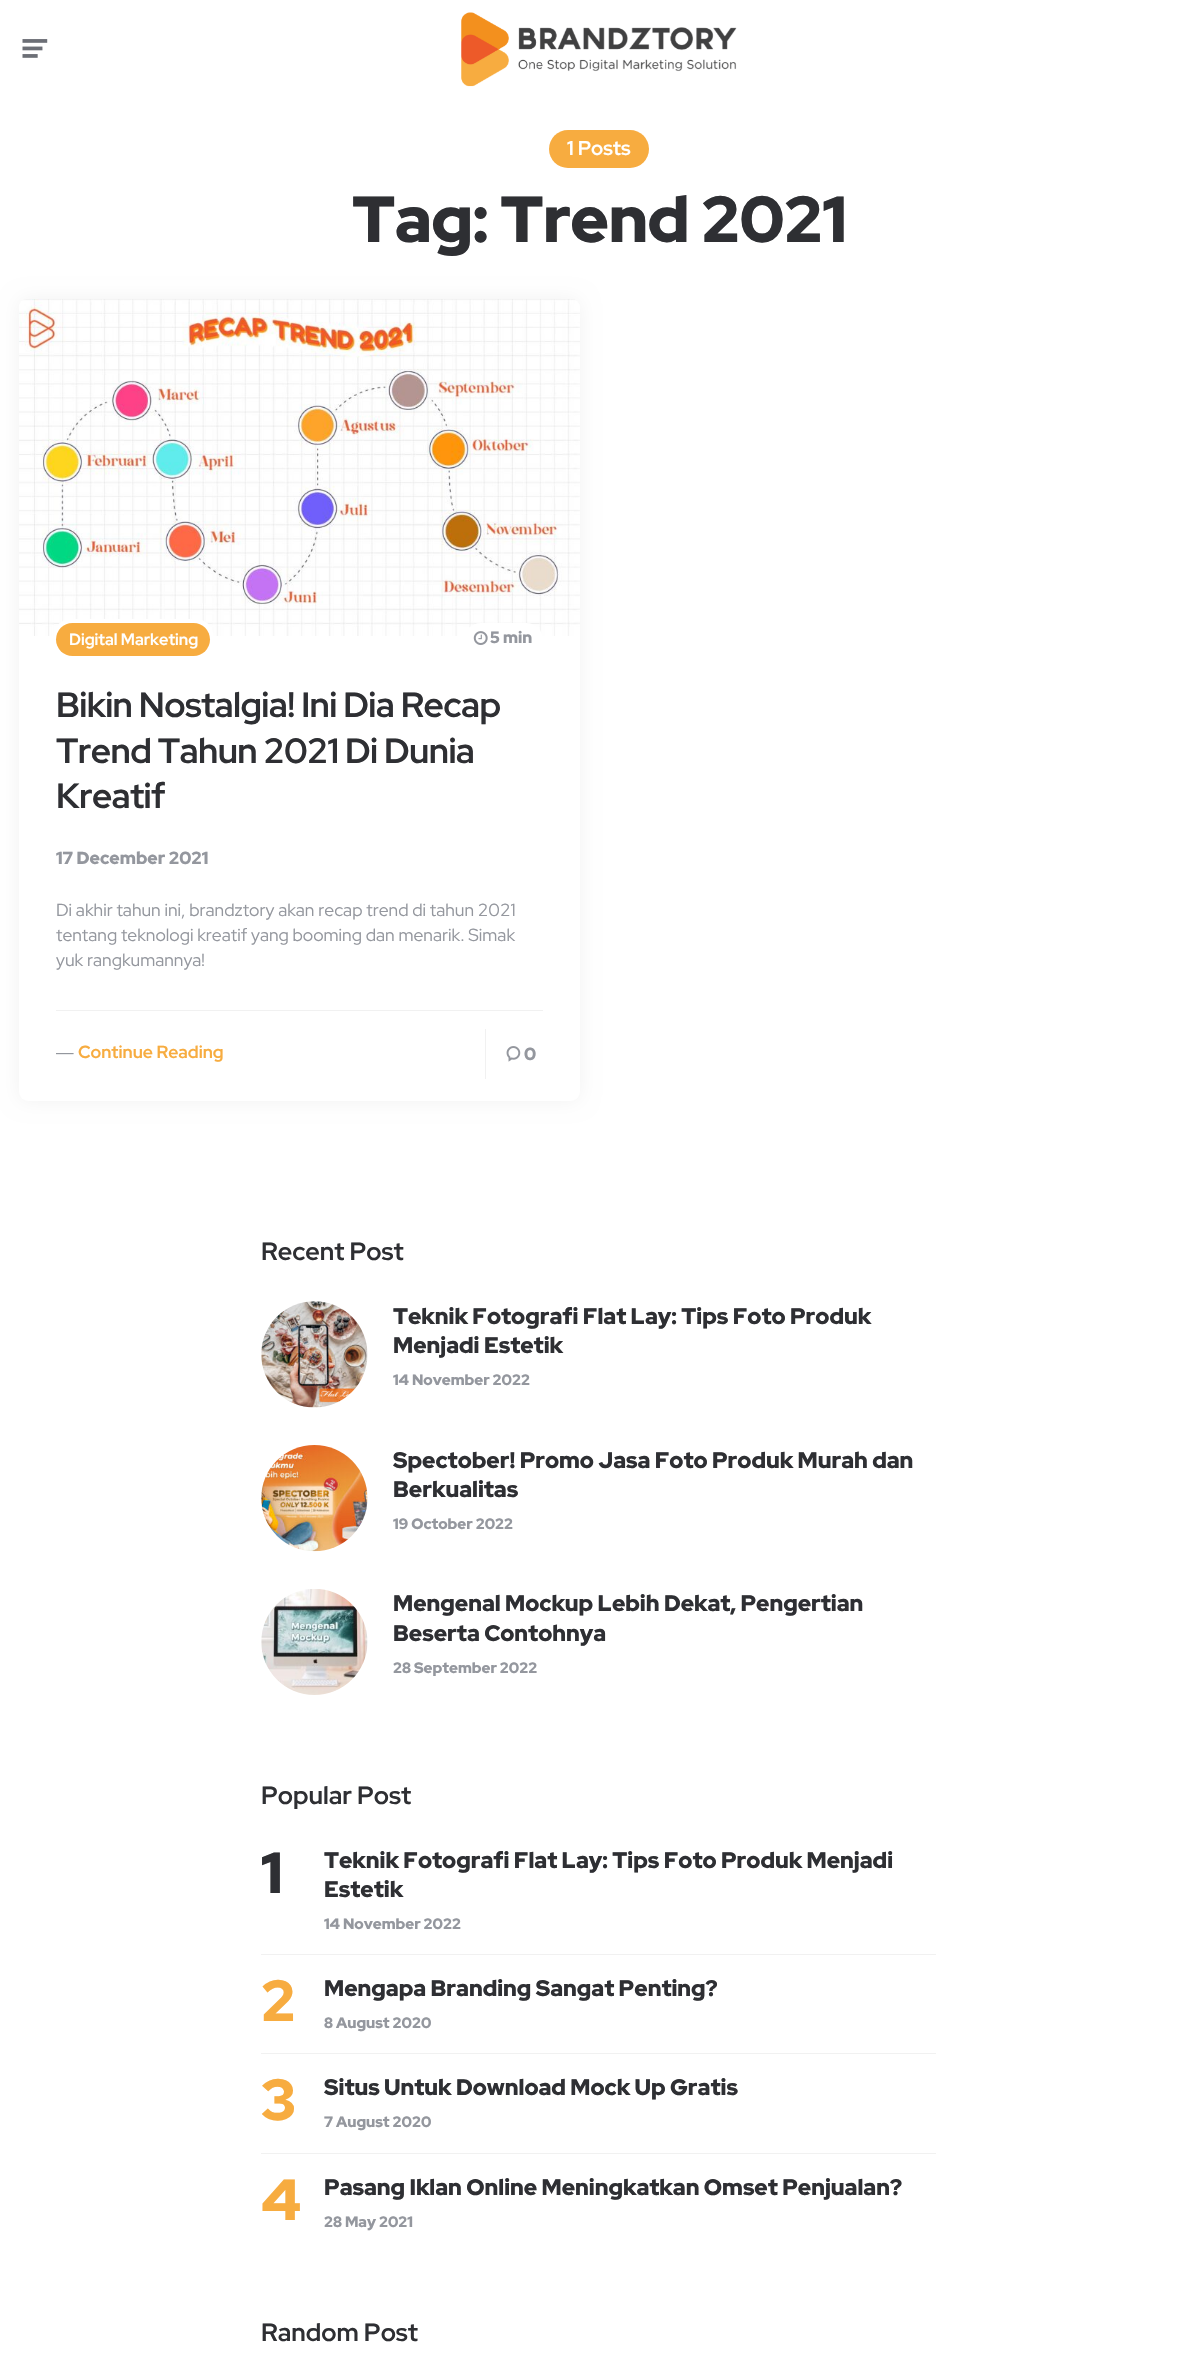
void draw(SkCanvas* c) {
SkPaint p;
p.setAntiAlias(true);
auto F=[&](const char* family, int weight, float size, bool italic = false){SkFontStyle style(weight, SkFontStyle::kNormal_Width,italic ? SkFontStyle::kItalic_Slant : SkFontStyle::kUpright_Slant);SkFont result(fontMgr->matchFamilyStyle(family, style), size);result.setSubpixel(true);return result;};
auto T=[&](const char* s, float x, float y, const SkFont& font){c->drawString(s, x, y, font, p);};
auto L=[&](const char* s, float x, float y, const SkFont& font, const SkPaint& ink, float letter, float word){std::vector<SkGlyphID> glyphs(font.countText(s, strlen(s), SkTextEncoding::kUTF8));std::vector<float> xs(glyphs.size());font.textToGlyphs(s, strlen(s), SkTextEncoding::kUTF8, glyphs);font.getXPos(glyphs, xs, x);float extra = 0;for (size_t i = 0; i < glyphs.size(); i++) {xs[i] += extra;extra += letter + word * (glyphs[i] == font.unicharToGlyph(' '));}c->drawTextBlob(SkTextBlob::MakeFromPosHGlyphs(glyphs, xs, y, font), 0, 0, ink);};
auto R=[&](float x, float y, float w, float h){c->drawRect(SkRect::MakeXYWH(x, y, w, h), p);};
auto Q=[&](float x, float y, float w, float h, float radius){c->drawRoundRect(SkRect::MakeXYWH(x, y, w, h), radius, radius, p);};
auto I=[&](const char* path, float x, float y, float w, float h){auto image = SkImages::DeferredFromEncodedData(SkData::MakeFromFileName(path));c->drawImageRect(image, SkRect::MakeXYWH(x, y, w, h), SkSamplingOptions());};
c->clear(0xffffffff);
I("1.png",22,39,26,19);
I("2.png",461,12,276,75);
p.setColor(0xfff7ac40);
Q(549,130,100,38,19);
auto f1 = F("Red Hat Display",700,20);
p.setColor(0xffffffff);
T("1 Posts",567,155,f1);
auto f2 = F("Red Hat Display",900,65);
p.setColor(0xff2e2f33);
L("Tag: Trend 2021",352,242,f2,p,-.6,0);
p.setColor(0x0d000000);
p.setMaskFilter(SkMaskFilter::MakeBlur(kNormal_SkBlurStyle, 9.5));
c->drawRoundRect(SkRect::MakeXYWH(19,299,561,802),9,9,p);
p.setMaskFilter(nullptr);
p.setColor(0xffffffff);
Q(19,299,561,802,9);
I("3.png",19,299,561,337);
Q(464,623,79,33,16.5);
I("4.png",473,631,15,14);
auto f3 = F("Red Hat Display",900,16.25);
p.setColor(0xff94979e);
T("5 min",490,643,f3);
auto f4 = F("Red Hat Display",900,17.5);
T("17 December 2021",56,864,f4);
p.setColor(0xffffffff);
Q(53,619,161,41,18);
p.setColor(0xfff7ac40);
Q(56,623,154,33,16.5);
auto f5 = F("Red Hat Display",700,16.25);
p.setColor(0xffffffff);
T("Digital Marketing",69,645,f5);
auto f6 = F("Red Hat Display",700,35);
p.setColor(0xff2e2f33);
L("Bikin Nostalgia! Ini Dia Recap",56,717,f6,p,-.6,0);
L("Trend Tahun 2021 Di Dunia",56,763,f6,p,-.6,0);
L("Kreatif",56,808,f6,p,-.6,0);
auto f7 = F("Red Hat Display",400,17.5);
p.setColor(0xff94979e);
T("Di akhir tahun ini, brandztory akan recap trend di tahun 2021",56,916,f7);
T("tentang teknologi kreatif yang booming dan menarik. Simak",56,941,f7);
T("yuk rangkumannya!",56,966,f7);
p.setColor(0xfff1f1f1);
R(56,1010,487,1);
auto f8 = F("Liberation Sans",400,17.5);
p.setColor(0xff94979e);
T("―",56,1058,f8);
auto f9 = F("Red Hat Display",700,17.5);
p.setColor(0xfff7ac40);
T("Continue Reading",78,1058,f9);
p.setColor(0xfff1f1f1);
R(485,1029,1,50);
I("5.png",506,1046,15,16);
p.setColor(0xff94979e);
T("0",524,1060,f4);
auto f10 = F("Red Hat Display",700,25);
p.setColor(0xff2e2f33);
T("Recent Post",261,1260,f10);
I("6.png",261,1301,107,107);
auto f11 = F("Red Hat Display",900,22.5);
T("Teknik Fotografi Flat Lay: Tips Foto Produk",393,1324,f11);
T("Menjadi Estetik",393,1353,f11);
auto f12 = F("Red Hat Display",900,15);
p.setColor(0xff94979e);
T("14 November 2022",393,1385,f12);
I("7.png",261,1445,107,107);
p.setColor(0xff2e2f33);
T("Spectober! Promo Jasa Foto Produk Murah dan",393,1468,f11);
T("Berkualitas",393,1497,f11);
p.setColor(0xff94979e);
T("19 October 2022",393,1529,f12);
I("8.png",261,1589,107,106);
p.setColor(0xff2e2f33);
T("Mengenal Mockup Lebih Dekat, Pengertian",393,1611,f11);
T("Beserta Contohnya",393,1641,f11);
p.setColor(0xff94979e);
T("28 September 2022",393,1673,f12);
p.setColor(0xff2e2f33);
T("Popular Post",261,1804,f10);
p.setColor(0xfff1f1f1);
R(261,1954,675,1);
auto f13 = F("Red Hat Display",900,58);
p.setColor(0xff2e2f33);
T("1",261,1893,f13);
T("Teknik Fotografi Flat Lay: Tips Foto Produk Menjadi",324,1868,f11);
T("Estetik",324,1897,f11);
p.setColor(0xff94979e);
T("14 November 2022",324,1929,f12);
p.setColor(0xfff1f1f1);
R(261,2053,675,1);
p.setColor(0xfff7ac40);
T("2",261,2021,f13);
p.setColor(0xff2e2f33);
T("Mengapa Branding Sangat Penting?",324,1996,f11);
p.setColor(0xff94979e);
T("8 August 2020",324,2028,f12);
p.setColor(0xfff1f1f1);
R(261,2153,675,1);
p.setColor(0xfff7ac40);
T("3",261,2120,f13);
p.setColor(0xff2e2f33);
T("Situs Untuk Download Mock Up Gratis",324,2095,f11);
p.setColor(0xff94979e);
T("7 August 2020",324,2127,f12);
p.setColor(0xfff7ac40);
T("4",261,2220,f13);
p.setColor(0xff2e2f33);
T("Pasang Iklan Online Meningkatkan Omset Penjualan?",324,2195,f11);
p.setColor(0xff94979e);
T("28 May 2021",324,2227,f12);
p.setColor(0xff2e2f33);
T("Random Post",261,2341,f10);
}
